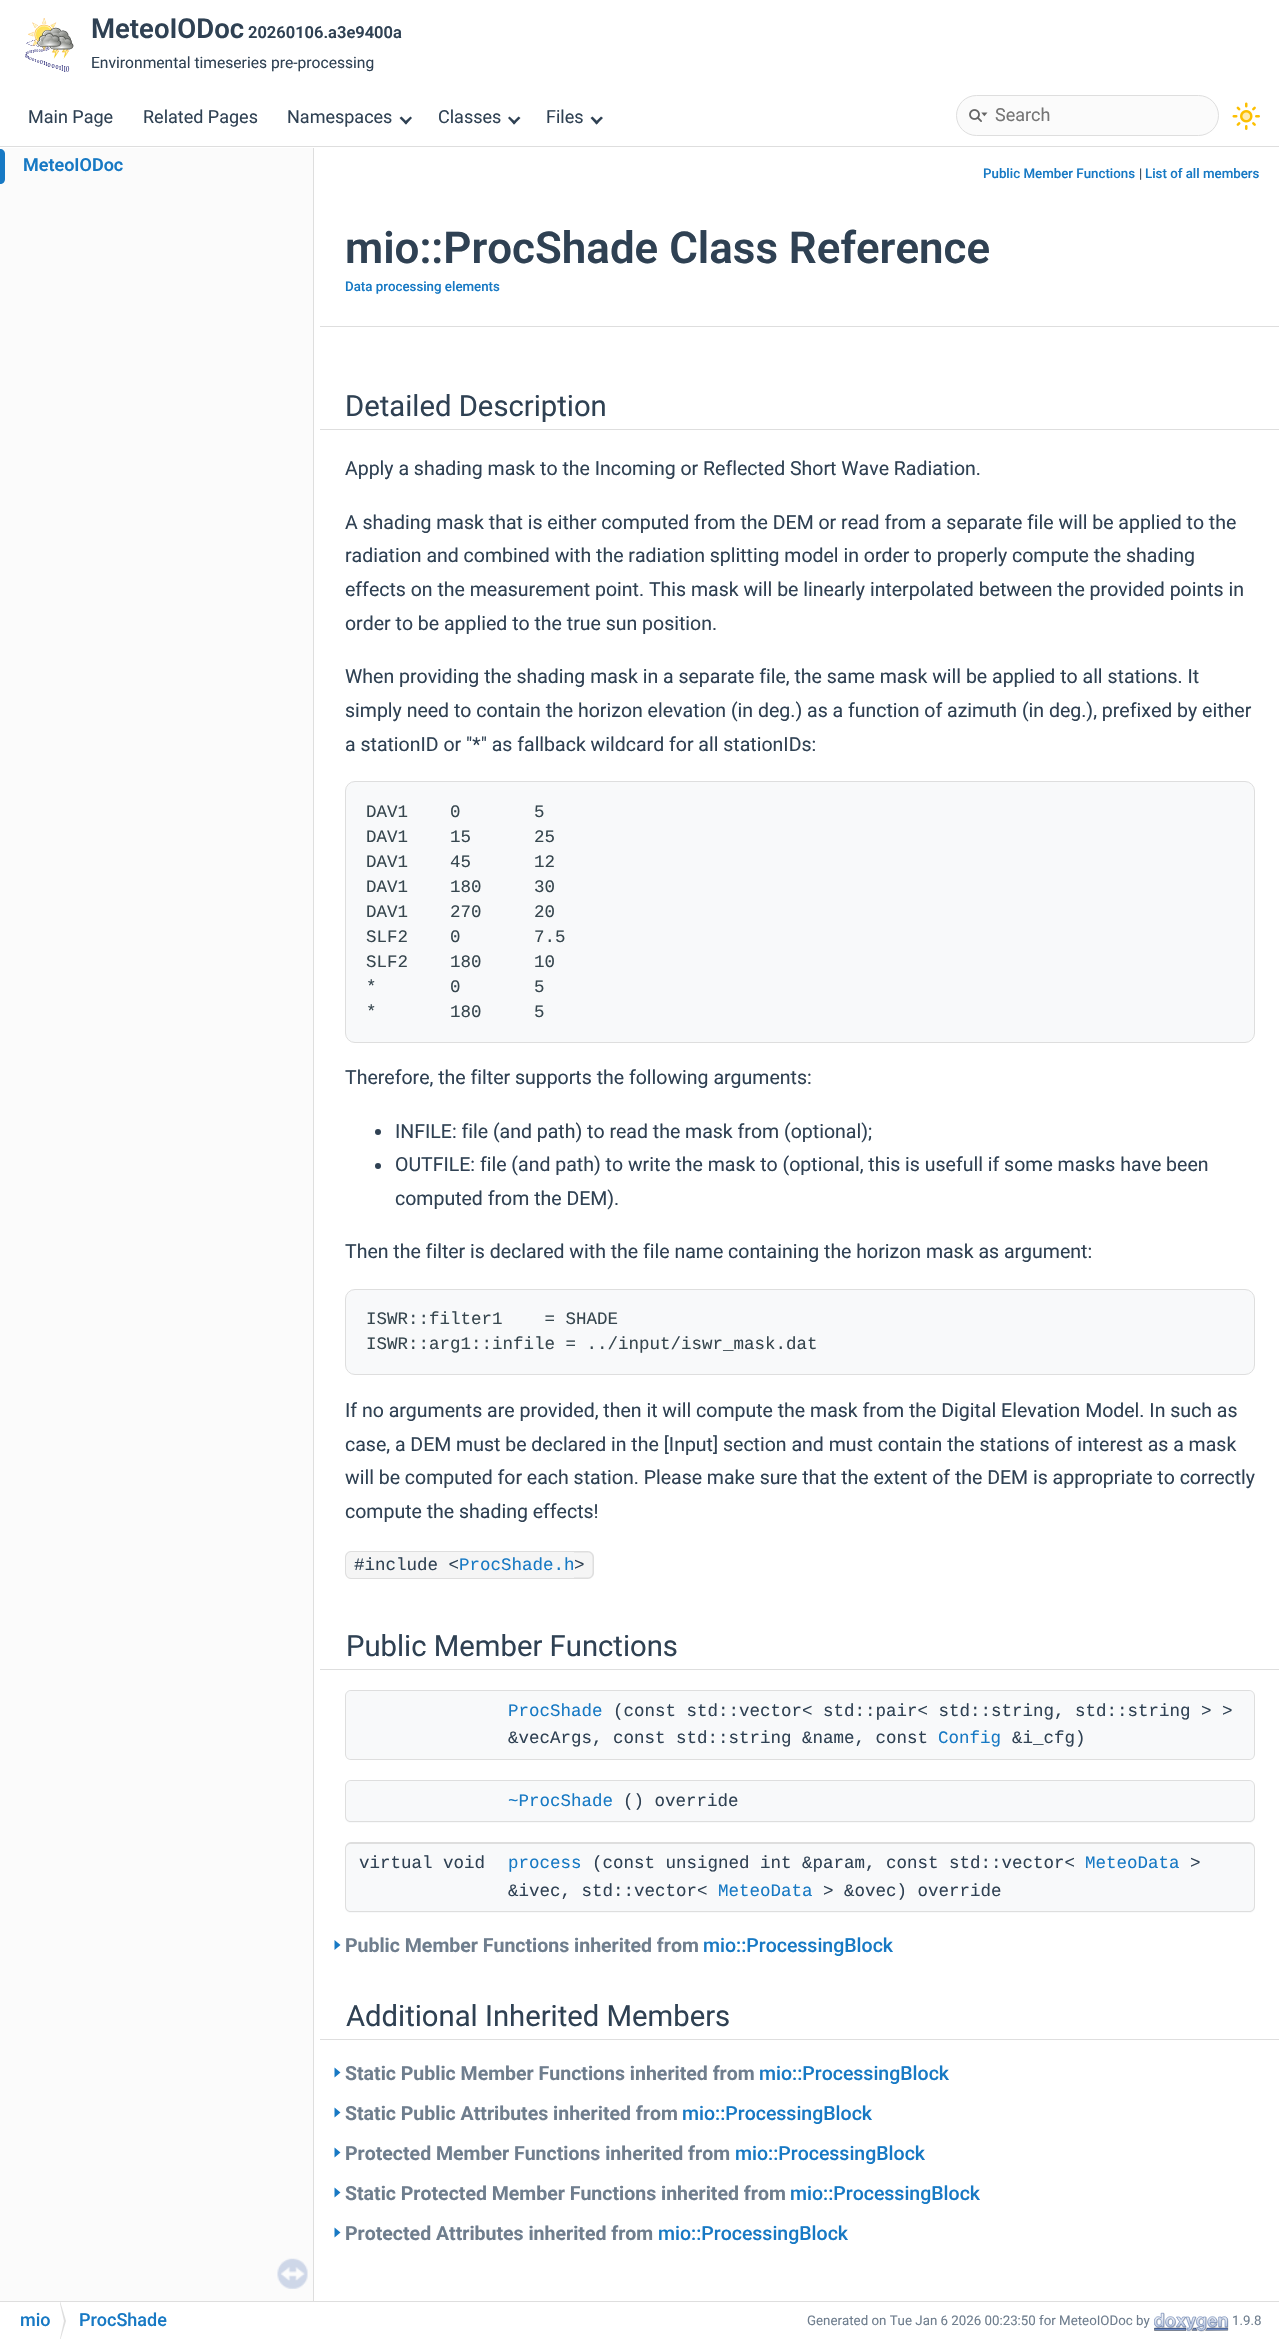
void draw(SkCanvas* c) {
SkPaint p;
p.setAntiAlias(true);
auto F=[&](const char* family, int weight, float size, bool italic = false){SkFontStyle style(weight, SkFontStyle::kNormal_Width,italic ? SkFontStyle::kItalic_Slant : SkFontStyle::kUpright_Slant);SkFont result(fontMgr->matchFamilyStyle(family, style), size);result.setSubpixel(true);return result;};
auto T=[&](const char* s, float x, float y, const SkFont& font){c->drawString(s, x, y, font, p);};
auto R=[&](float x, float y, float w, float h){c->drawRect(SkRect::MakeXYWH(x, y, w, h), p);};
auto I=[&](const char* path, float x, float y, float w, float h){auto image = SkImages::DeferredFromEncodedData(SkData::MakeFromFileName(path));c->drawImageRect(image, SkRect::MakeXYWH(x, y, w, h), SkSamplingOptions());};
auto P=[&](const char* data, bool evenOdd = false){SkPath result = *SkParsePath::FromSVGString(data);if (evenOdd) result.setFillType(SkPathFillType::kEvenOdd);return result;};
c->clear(0xffffffff);
p.setColor(0xffdedede);
R(0,146,1279,1);
I("1.png",25,18,49,54);
auto f1 = F("Roboto",600,27.5);
p.setColor(0xff2f4153);
T("MeteoIODoc",91,38,f1);
auto f2 = F("Roboto",600,16.5);
T("20260106.a3e9400a",248,38,f2);
auto f3 = F("Roboto",400,15.6);
T("Environmental timeseries pre-processing",91,68,f3);
auto f4 = F("Roboto",400,18);
T("Main Page",28,123,f4);
T("Related Pages",143,123,f4);
T("Namespaces",287,123,f4);
c->drawPath(P("M410.5 116.5l1.5 1.5l-6 6.5l-2-2z"),p);
c->drawPath(P("M401.5 116.5l6 6l-1.5 2l-6.5-6.5z"),p);
T("Classes",438,123,f4);
c->drawPath(P("M518.5 116.5l2 1.5l-6.5 6.5l-1.5-2z"),p);
c->drawPath(P("M509.5 116.5l6.5 6l-2 2l-6-6.5z"),p);
T("Files",546,123,f4);
c->drawPath(P("M601 116.5l2 1.5l-6.5 6.5l-1.5-2z"),p);
c->drawPath(P("M592.5 116.5l6 6l-2 2l-6-6.5z"),p);
p.setColor(0xfffbfbfb);
c->drawRoundRect(SkRect::MakeXYWH(956.5,95.5,262,40),20,20,p);
p.setStroke(true);
p.setStrokeWidth(1);
p.setColor(0xffdedede);
c->drawRoundRect(SkRect::MakeXYWH(956.5,95.5,262,40),20,20,p);
I("2.png",969,109,19,13);
p.setStroke(false);
p.setColor(0xff757575);
T("Search",995,121,f4);
I("3.png",1232,102,28,28);
p.setColor(0xfffbfbfb);
R(0,148,313,2153);
p.setColor(0xffdedede);
R(313,148,1,2153);
p.setColor(0xff1779c4);
c->drawPath(P("M0 149c3 0 5 2 5 5v25c0 3-2 5-5 5z"),p);
auto f5 = F("Roboto",600,18);
T("MeteoIODoc",23,171,f5);
I("4.png",277,2258,31,31);
p.setColor(0xffdedede);
R(320,326,959,1);
auto f6 = F("Roboto",500,13.3);
p.setColor(0xff1779c4);
T("Public Member Functions",983,178,f6);
auto f7 = F("Roboto",400,13.3);
p.setColor(0xff2f4153);
T("|",1139,178,f7);
p.setColor(0xff1779c4);
T("List of all members",1145,178,f6);
auto f8 = F("Roboto",600,43.9);
p.setColor(0xff2f4153);
T("mio::ProcShade Class Reference",345,263,f8);
p.setColor(0xff1779c4);
T("Data processing elements",345,291,f6);
c->save();
c->clipRect(SkRect::MakeXYWH(320,148,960,2153));
p.setColor(0xffdedede);
c->drawPath(P("M220 380v50h910v-1h-785v-49z"),p);
c->restore();
c->drawPath(P("M470 429v1h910v-50h-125v49z"),p);
c->save();
c->clipRect(SkRect::MakeXYWH(320,148,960,2153));
p.setColor(0xffffffff);
c->drawPath(P("M220 379v50h910h-785v-50z"),p);
c->restore();
c->drawPath(P("M470 429h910v-50h-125v50z"),p);
auto f9 = F("Roboto",400,29.25);
p.setColor(0xff2f4153);
T("Detailed Description",345,416,f9);
auto f10 = F("Roboto",400,19.5);
T("Apply a shading mask to the Incoming or Reflected Short Wave Radiation.",345,475,f10);
T("A shading mask that is either computed from the DEM or read from a separate file will be applied to the",345,529,f10);
T("radiation and combined with the radiation splitting model in order to properly compute the shading",345,562,f10);
T("effects on the measurement point. This mask will be linearly interpolated between the provided points in",345,596,f10);
T("order to be applied to the true sun position.",345,630,f10);
T("When providing the shading mask in a separate file, the same mask will be applied to all stations. It",345,683,f10);
T("simply need to contain the horizon elevation (in deg.) as a function of azimuth (in deg.), prefixed by either",345,717,f10);
T("a stationID or \"*\" as fallback wildcard for all stationIDs:",345,751,f10);
p.setColor(0xfff8f9fa);
c->drawRoundRect(SkRect::MakeXYWH(345.5,781.5,909,261),9.5,9.5,p);
p.setStroke(true);
p.setColor(0xffdedede);
c->drawRoundRect(SkRect::MakeXYWH(345.5,781.5,909,261),9.5,9.5,p);
auto f11 = F("Liberation Mono",400,17.5);
p.setStroke(false);
p.setColor(0xff37474f);
T("DAV1    0       5",366,817,f11);
T("DAV1    15      25",366,842,f11);
T("DAV1    45      12",366,867,f11);
T("DAV1    180     30",366,892,f11);
T("DAV1    270     20",366,917,f11);
T("SLF2    0       7.5",366,942,f11);
T("SLF2    180     10",366,967,f11);
T("*       0       5",366,992,f11);
T("*       180     5",366,1017,f11);
p.setColor(0xff2f4153);
T("Therefore, the filter supports the following arguments:",345,1084,f10);
c->drawCircle(378,1132,3,p);
T("INFILE: file (and path) to read the mask from (optional);",395,1138,f10);
c->drawCircle(378,1166,3,p);
T("OUTFILE: file (and path) to write the mask to (optional, this is usefull if some masks have been",395,1171,f10);
T("computed from the DEM).",395,1205,f10);
T("Then the filter is declared with the file name containing the horizon mask as argument:",345,1258,f10);
p.setColor(0xfff8f9fa);
c->drawRoundRect(SkRect::MakeXYWH(345.5,1289.5,909,85),9.5,9.5,p);
p.setStroke(true);
p.setColor(0xffdedede);
c->drawRoundRect(SkRect::MakeXYWH(345.5,1289.5,909,85),9.5,9.5,p);
p.setStroke(false);
p.setColor(0xff37474f);
T("ISWR::filter1    = SHADE",366,1324,f11);
T("ISWR::arg1::infile = ../input/iswr_mask.dat",366,1349,f11);
p.setColor(0xff2f4153);
T("If no arguments are provided, then it will compute the mask from the Digital Elevation Model. In such as",345,1417,f10);
T("case, a DEM must be declared in the [Input] section and must contain the stations of interest as a mask",345,1451,f10);
T("will be computed for each station. Please make sure that the extent of the DEM is appropriate to correctly",345,1484,f10);
T("compute the shading effects!",345,1518,f10);
p.setColor(0xfff5f5f5);
c->drawPath(P("M351 1551h108v28h-108c-3.5 0-6-2.5-6-6v-16c0-3.5 2.5-6 6-6z"),p);
p.setColor(0xffdedede);
c->drawPath(P("M351 1551h108v28h-108c-3 0-6-3-6-7v-14c0-4 3-7 6-7zm0 1h108v26h-108c-3 0-5-3-5-6v-14c0-3 2-6 5-6z",true),p);
p.setColor(0xff2f4153);
T("#include <",354,1570,f11);
p.setColor(0xfff5f5f5);
R(459,1552,115,26);
p.setColor(0xff1779c4);
T("ProcShade.h",459,1570,f11);
p.setColor(0xffdedede);
R(459,1551,115,1);
R(459,1578,115,1);
p.setColor(0xfff5f5f5);
c->drawPath(P("M574 1551h14c3.5 0 6 2.5 6 6v16c0 3.5-2.5 6-6 6h-14z"),p);
p.setColor(0xffdedede);
c->drawPath(P("M574 1551h13.5c3.5 0 6.5 3 6.5 6.5v15c0 3.5-3 6.5-6.5 6.5h-13.5zm0 1.5h13.5c3 0 5 2 5 5v15c0 3-2 5-5 5h-13.5z",true),p);
p.setColor(0xff2f4153);
T(">",574,1570,f11);
c->save();
c->clipRect(SkRect::MakeXYWH(320,148,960,2153));
p.setColor(0xffdedede);
c->drawPath(P("M221 1620v50h908v-1h-783v-49z"),p);
c->restore();
c->drawPath(P("M471 1669v1h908v-50h-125v49z"),p);
c->save();
c->clipRect(SkRect::MakeXYWH(320,148,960,2153));
p.setColor(0xffffffff);
c->drawPath(P("M221 1619v50h908h-783v-50z"),p);
c->restore();
c->drawPath(P("M471 1669h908v-50h-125v50z"),p);
p.setColor(0xff2f4153);
T("Public Member Functions",346,1656,f9);
p.setColor(0xfff8f9fa);
c->drawPath(P("M351 1690h157v70h-157c-3.5 0-6-2.5-6-6v-58c0-3.5 2.5-6 6-6z"),p);
p.setColor(0xffdedede);
c->drawPath(P("M351 1690h157v70h-157c-3 0-6-3-6-6v-58c0-3 3-6 6-6zm0 1h157v68h-157c-3 0-5-2-5-5v-58c0-3 2-5 5-5z",true),p);
p.setColor(0xfff8f9fa);
c->drawPath(P("M508 1690h741c3.5 0 6 2.5 6 6v58c0 3.5-2.5 6-6 6h-741z"),p);
p.setColor(0xffdedede);
c->drawPath(P("M508 1690h741c3 0 6 3 6 6v58c0 3-3 6-6 6h-741zm0 1h741c3 0 5 2 5 5v58c0 3-2 5-5 5h-741z",true),p);
p.setColor(0xff1779c4);
T("ProcShade",508,1716,f11);
p.setColor(0xff2f4153);
T("(const std::vector< std::pair< std::string, std::string > >",613,1716,f11);
T("&vecArgs, const std::string &name, const",508,1743,f11);
p.setColor(0xff1779c4);
T("Config",938,1743,f11);
p.setColor(0xff2f4153);
T("&i_cfg)",1012,1743,f11);
p.setColor(0xfff8f9fa);
c->drawPath(P("M351 1780h157v43h-157c-3.5 0-6-2.5-6-6v-31c0-3.5 2.5-6 6-6z"),p);
p.setColor(0xffdedede);
c->drawPath(P("M351 1780h157v42h-157c-3 0-6-2-6-6v-30c0-3 3-6 6-6zm0 1h157v40h-157c-3 0-5-2-5-5v-30c0-3 2-5 5-5z",true),p);
p.setColor(0xfff8f9fa);
c->drawPath(P("M508 1780h741c3.5 0 6 2.5 6 6v31c0 3.5-2.5 6-6 6h-741z"),p);
p.setColor(0xffdedede);
c->drawPath(P("M508 1780h741c3 0 6 3 6 6v30c0 4-3 6-6 6h-741zm0 1h741c3 0 5 2 5 5v30c0 3-2 5-5 5h-741z",true),p);
p.setColor(0xff1779c4);
T("~ProcShade",508,1806,f11);
p.setColor(0xff2f4153);
T("() override",623,1806,f11);
p.setColor(0xfff8f9fa);
c->drawPath(P("M351 1843h157v70h-157c-3.5 0-6-2.5-6-6v-58c0-3.5 2.5-6 6-6z"),p);
p.setColor(0xffdedede);
c->drawPath(P("M351 1842h157v70h-157c-3 0-6-2-6-6v-57c0-4 3-7 6-7zm0 2h157v67h-157c-3 0-5-2-5-5v-57c0-3 2-5 5-5z",true),p);
p.setColor(0xff2f4153);
T("virtual void",359,1868,f11);
p.setColor(0xfff8f9fa);
c->drawPath(P("M508 1843h741c3.5 0 6 2.5 6 6v58c0 3.5-2.5 6-6 6h-741z"),p);
p.setColor(0xffdedede);
c->drawPath(P("M508 1842h741c3 0 6 3 6 7v57c0 4-3 6-6 6h-741zm0 2h741c3 0 5 2 5 5v57c0 3-2 5-5 5h-741z",true),p);
p.setColor(0xff1779c4);
T("process",508,1868,f11);
p.setColor(0xff2f4153);
T("(const unsigned int &param, const std::vector<",592,1868,f11);
p.setColor(0xff1779c4);
T("MeteoData",1085,1868,f11);
p.setColor(0xff2f4153);
T(">",1190,1868,f11);
T("&ivec, std::vector<",508,1896,f11);
p.setColor(0xff1779c4);
T("MeteoData",718,1896,f11);
p.setColor(0xff2f4153);
T("> &ovec) override",823,1896,f11);
p.setColor(0xff1779c4);
c->drawPath(P("M334.5 1950v-10l6 5z"),p);
auto f12 = F("Roboto",700,19.5);
p.setColor(0xff6f7e8e);
T("Public Member Functions inherited from",345,1952,f12);
auto f13 = F("Roboto",500,19.5);
p.setColor(0xff1779c4);
T("mio::ProcessingBlock",703,1952,f13);
p.setColor(0xffdedede);
c->drawPath(P("M971 2039v1h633v-50h-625v49z"),p);
p.setColor(0xffffffff);
c->drawPath(P("M971 2039h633v-50h-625v50z"),p);
c->save();
c->clipRect(SkRect::MakeXYWH(320,148,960,2153));
p.setColor(0xffdedede);
c->drawPath(P("M221 1990v50h633v-1h-508v-49z"),p);
c->restore();
c->drawPath(P("M471 2039v1h633v-50h-125v49z"),p);
c->save();
c->clipRect(SkRect::MakeXYWH(320,148,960,2153));
p.setColor(0xffffffff);
c->drawPath(P("M221 1989v50h633h-508v-50z"),p);
c->restore();
c->drawPath(P("M471 2039h633v-50h-125v50z"),p);
p.setColor(0xff2f4153);
T("Additional Inherited Members",346,2026,f9);
p.setColor(0xff1779c4);
c->drawPath(P("M334.5 2077.5v-10l6 5zm0 40v-10l6 5z"),p);
p.setColor(0xff6f7e8e);
T("Static Public Member Functions inherited from",345,2080,f12);
p.setColor(0xff1779c4);
T("mio::ProcessingBlock",759,2080,f13);
p.setColor(0xff6f7e8e);
T("Static Public Attributes inherited from",345,2120,f12);
p.setColor(0xff1779c4);
T("mio::ProcessingBlock",682,2120,f13);
c->drawPath(P("M334.5 2157.5v-10l6 5zm0 40v-10l6 5z"),p);
p.setColor(0xff6f7e8e);
T("Protected Member Functions inherited from",345,2160,f12);
p.setColor(0xff1779c4);
T("mio::ProcessingBlock",735,2160,f13);
p.setColor(0xff6f7e8e);
T("Static Protected Member Functions inherited from",345,2200,f12);
p.setColor(0xff1779c4);
T("mio::ProcessingBlock",790,2200,f13);
c->drawPath(P("M334.5 2237.5v-10l6 5z"),p);
p.setColor(0xff6f7e8e);
T("Protected Attributes inherited from",345,2240,f12);
p.setColor(0xff1779c4);
T("mio::ProcessingBlock",658,2240,f13);
p.setColor(0xffdedede);
R(0,2301,1279,1);
auto f14 = F("Roboto",500,18);
p.setColor(0xff1779c4);
T("mio",20,2326,f14);
p.setColor(0xffdedede);
c->drawPath(P("M60 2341v-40l6 20z"),p);
c->save();
c->clipRect(SkRect::MakeXYWH(0,2303,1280,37));
p.setColor(0xffffffff);
c->drawPath(P("M58 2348v-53l6 26z"),p);
c->restore();
p.setColor(0xff1779c4);
T("ProcShade",79,2326,f14);
p.setColor(0xff6f7e8e);
T("Generated on Tue Jan 6 2026 00:23:50 for MeteoIODoc by",807,2325,f7);
I("5.png",1154,2312,75,20);
T("1.9.8",1232,2325,f7);
}
